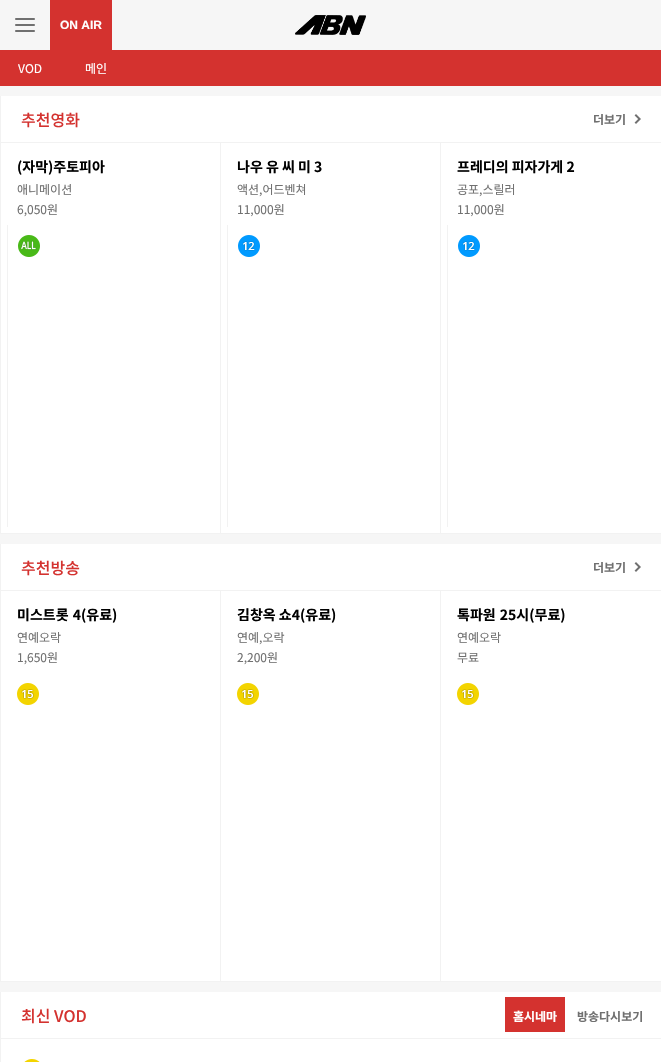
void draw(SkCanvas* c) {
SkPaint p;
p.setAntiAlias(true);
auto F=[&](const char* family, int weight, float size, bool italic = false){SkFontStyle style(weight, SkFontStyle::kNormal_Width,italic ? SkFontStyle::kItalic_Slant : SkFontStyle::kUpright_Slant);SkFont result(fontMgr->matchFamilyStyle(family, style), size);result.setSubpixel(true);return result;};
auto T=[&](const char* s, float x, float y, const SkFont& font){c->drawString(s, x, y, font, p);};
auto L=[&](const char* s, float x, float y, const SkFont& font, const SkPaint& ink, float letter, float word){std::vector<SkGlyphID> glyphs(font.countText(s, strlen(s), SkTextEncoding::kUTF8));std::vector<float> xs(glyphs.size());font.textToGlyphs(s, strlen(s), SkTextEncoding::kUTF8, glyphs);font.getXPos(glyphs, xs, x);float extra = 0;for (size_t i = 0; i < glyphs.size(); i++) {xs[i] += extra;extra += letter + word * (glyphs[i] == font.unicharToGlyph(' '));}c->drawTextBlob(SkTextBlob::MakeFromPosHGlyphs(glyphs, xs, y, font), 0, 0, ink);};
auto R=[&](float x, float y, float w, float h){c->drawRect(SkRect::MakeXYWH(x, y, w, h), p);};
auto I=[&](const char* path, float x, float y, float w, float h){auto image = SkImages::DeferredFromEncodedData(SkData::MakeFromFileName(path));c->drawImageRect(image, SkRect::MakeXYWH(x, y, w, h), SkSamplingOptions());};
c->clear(0xfff6f6f6);
I("1.png",15,18,20,14);
p.setColor(0xffd4322f);
R(50,0,62,50);
auto f1 = F("Liberation Sans",700,12);
p.setColor(0xffffffff);
T("ON AIR",60,29,f1);
I("2.png",295,15,71,20);
p.setColor(0xffd4322f);
R(0,50,661,36);
auto f2 = F("Noto Sans KR",400,12);
p.setColor(0xffffffff);
T("VOD",18,73,f2);
T("메인",85,73,f2);
R(1,96,660,437);
p.setColor(0xfff2f2f2);
R(0,533,661,1);
R(0,96,1,438);
R(1,142,660,1);
auto f3 = F("Noto Sans KR",500,16);
p.setColor(0xffd4322f);
T("추천영화",21,126,f3);
I("3.png",634,114,7,10);
auto f4 = F("Noto Sans KR",700,12);
p.setColor(0xff707070);
T("더보기",593,124,f4);
p.setColor(0xfff2f2f2);
R(220,143,1,390);
auto f5 = F("Noto Sans KR",700,14);
p.setColor(0xff000000);
T("(자막)주토피아",17,172,f5);
p.setColor(0xff707070);
T("애니메이션",17,194,f2);
T("6,050원",17,214,f2);
p.setColor(0xfff2f2f2);
R(7,225,1,302);
I("4.png",18,235,22,22);
R(440,143,1,390);
p.setColor(0xff000000);
T("나우 유 씨 미 3",237,172,f5);
p.setColor(0xff707070);
T("액션,어드벤쳐",237,194,f2);
T("11,000원",237,214,f2);
p.setColor(0xfff2f2f2);
R(227,225,1,302);
I("5.png",238,235,22,22);
p.setColor(0xff000000);
T("프레디의 피자가게 2",457,172,f5);
p.setColor(0xff707070);
T("공포,스릴러",457,194,f2);
T("11,000원",457,214,f2);
p.setColor(0xfff2f2f2);
R(447,225,1,302);
I("5.png",458,235,22,22);
p.setColor(0xffffffff);
R(1,544,660,437);
p.setColor(0xfff2f2f2);
R(0,981,661,1);
R(0,544,1,438);
R(1,590,660,1);
p.setColor(0xffd4322f);
T("추천방송",21,574,f3);
I("3.png",634,562,7,10);
p.setColor(0xff707070);
T("더보기",593,572,f4);
p.setColor(0xfff2f2f2);
R(220,591,1,390);
p.setColor(0xff000000);
L("미스트롯 4(유료)",17,620,f5,p,0,1);
p.setColor(0xff707070);
T("연예오락",17,642,f2);
T("1,650원",17,662,f2);
I("6.png",17,683,22,22);
p.setColor(0xfff2f2f2);
R(440,591,1,390);
p.setColor(0xff000000);
T("김창옥 쇼4(유료)",237,620,f5);
p.setColor(0xff707070);
T("연예,오락",237,642,f2);
T("2,200원",237,662,f2);
I("6.png",237,683,22,22);
p.setColor(0xff000000);
L("톡파원 25시(무료)",457,620,f5,p,0,1);
p.setColor(0xff707070);
T("연예오락",457,642,f2);
T("무료",457,662,f2);
I("6.png",457,683,22,22);
p.setColor(0xffffffff);
R(1,992,660,70);
p.setColor(0xfff2f2f2);
R(0,992,1,70);
R(1,1038,660,1);
p.setColor(0xffd4322f);
T("최신 VOD",21,1022,f3);
R(505,997,60,35);
p.setColor(0xffffffff);
T("홈시네마",513,1021,f4);
p.setColor(0xff707070);
T("방송다시보기",577,1021,f4);
I("7.png",24,1059,16,3);
}
